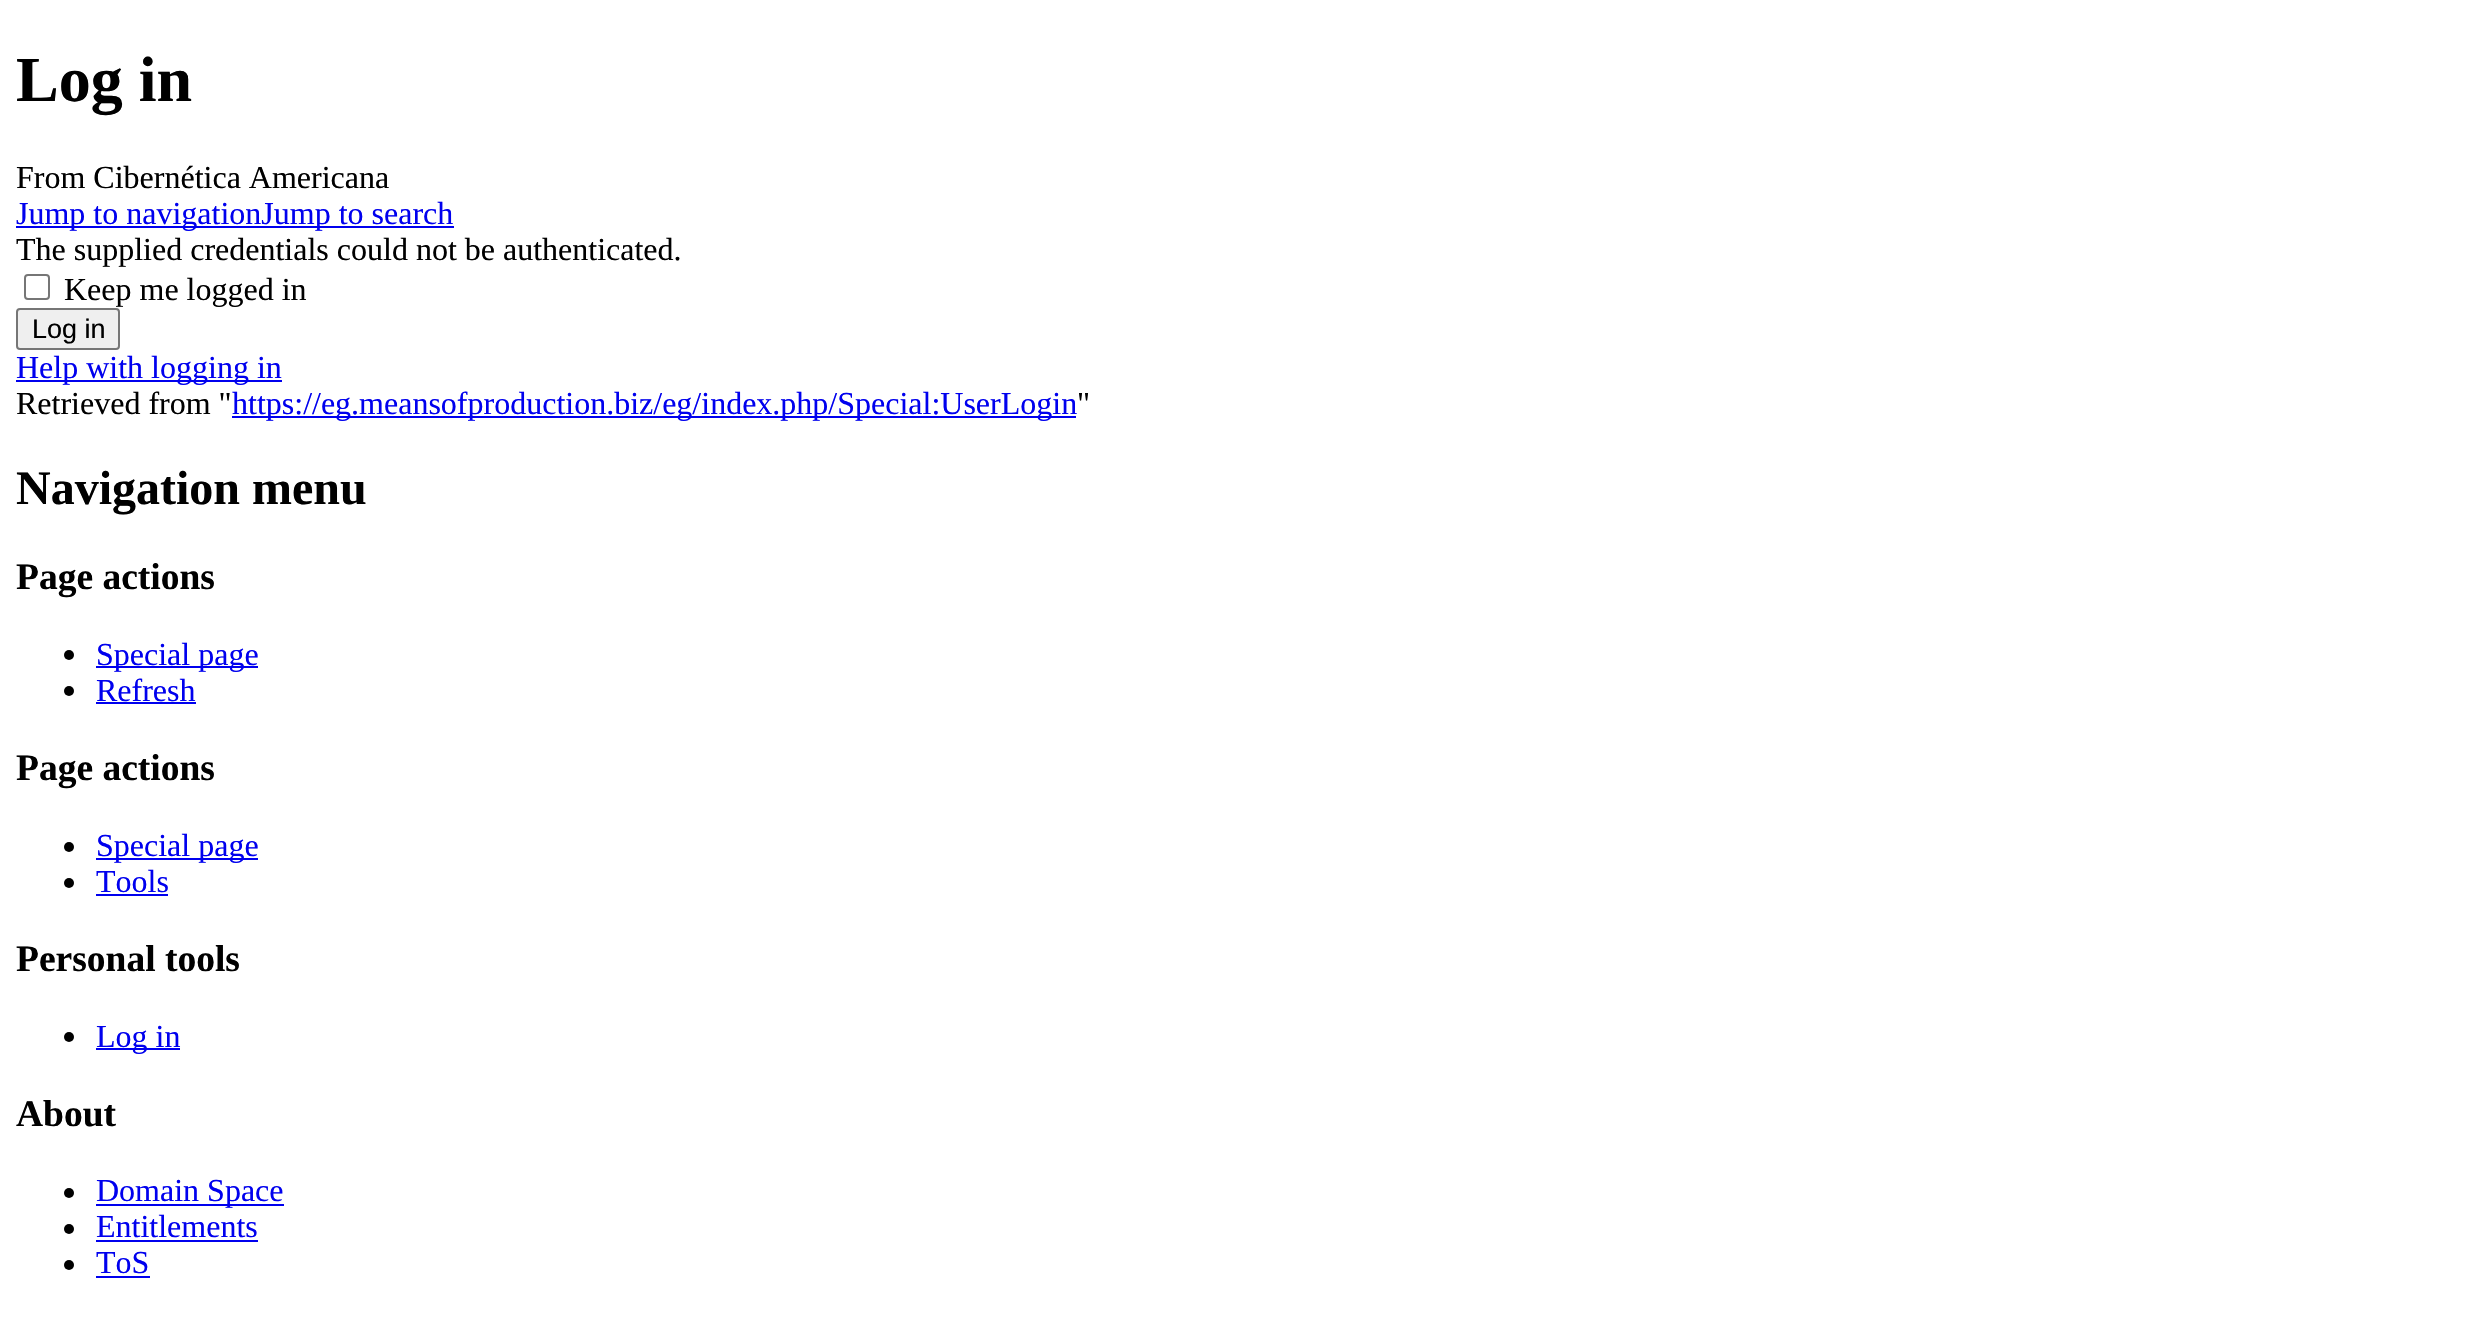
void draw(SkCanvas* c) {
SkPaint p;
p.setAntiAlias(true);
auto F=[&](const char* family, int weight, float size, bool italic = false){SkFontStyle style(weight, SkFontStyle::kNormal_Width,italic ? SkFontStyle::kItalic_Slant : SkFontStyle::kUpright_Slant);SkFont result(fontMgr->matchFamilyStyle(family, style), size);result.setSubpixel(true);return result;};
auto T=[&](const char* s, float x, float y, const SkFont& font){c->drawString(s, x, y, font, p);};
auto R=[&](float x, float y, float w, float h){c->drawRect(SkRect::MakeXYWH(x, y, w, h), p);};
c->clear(0xffffffff);
auto f1 = F("Liberation Serif",700,64);
p.setColor(0xff000000);
T("Log in",16,101,f1);
auto f2 = F("Liberation Serif",400,32);
T("From Cibernética Americana",16,188,f2);
p.setColor(0xff0000ee);
R(16,226,438,2);
T("Jump to navigationJump to search",16,224,f2);
p.setColor(0xff000000);
T("The supplied credentials could not be authenticated.",16,260,f2);
p.setStroke(true);
p.setStrokeWidth(2);
p.setColor(0xff767676);
c->drawRoundRect(SkRect::MakeXYWH(25,275,24,24),3,3,p);
p.setStroke(false);
p.setColor(0xff000000);
T("Keep me logged in",64,300,f2);
p.setColor(0xffefefef);
c->drawRoundRect(SkRect::MakeXYWH(17,309,102,40),3,3,p);
p.setStroke(true);
p.setColor(0xff767676);
c->drawRoundRect(SkRect::MakeXYWH(17,309,102,40),3,3,p);
auto f3 = F("Liberation Sans",400,27);
p.setStroke(false);
p.setColor(0xff000000);
T("Log in",32,338,f3);
p.setColor(0xff0000ee);
R(16,380,266,2);
T("Help with logging in",16,378,f2);
p.setColor(0xff000000);
T("Retrieved from \"",16,414,f2);
p.setColor(0xff0000ee);
R(232,416,844,2);
T("https://eg.meansofproduction.biz/eg/index.php/Special:UserLogin",232,414,f2);
p.setColor(0xff000000);
T("\"",1077,414,f2);
auto f4 = F("Liberation Serif",700,48);
T("Navigation menu",16,504,f4);
auto f5 = F("Liberation Serif",700,37.5);
T("Page actions",16,589,f5);
c->drawCircle(69,655,5,p);
p.setColor(0xff0000ee);
R(96,666,162,2);
T("Special page",96,665,f2);
p.setColor(0xff000000);
c->drawCircle(69,691,5,p);
p.setColor(0xff0000ee);
T("Refresh",96,701,f2);
R(96,702,100,2);
p.setColor(0xff000000);
T("Page actions",16,780,f5);
c->drawCircle(69,847,5,p);
p.setColor(0xff0000ee);
R(96,858,162,2);
T("Special page",96,856,f2);
p.setColor(0xff000000);
c->drawCircle(69,883,5,p);
p.setColor(0xff0000ee);
T("Tools",96,892,f2);
R(96,894,72,2);
p.setColor(0xff000000);
T("Personal tools",16,971,f5);
c->drawCircle(69,1037,5,p);
p.setColor(0xff0000ee);
R(96,1048,84,2);
T("Log in",96,1047,f2);
p.setColor(0xff000000);
T("About",16,1126,f5);
c->drawCircle(69,1193,5,p);
p.setColor(0xff0000ee);
R(96,1204,188,2);
T("Domain Space",96,1201,f2);
p.setColor(0xff000000);
c->drawCircle(69,1229,5,p);
p.setColor(0xff0000ee);
T("Entitlements",96,1237,f2);
R(96,1240,162,2);
p.setColor(0xff000000);
c->drawCircle(69,1265,5,p);
p.setColor(0xff0000ee);
T("ToS",96,1273,f2);
R(96,1276,54,2);
}
